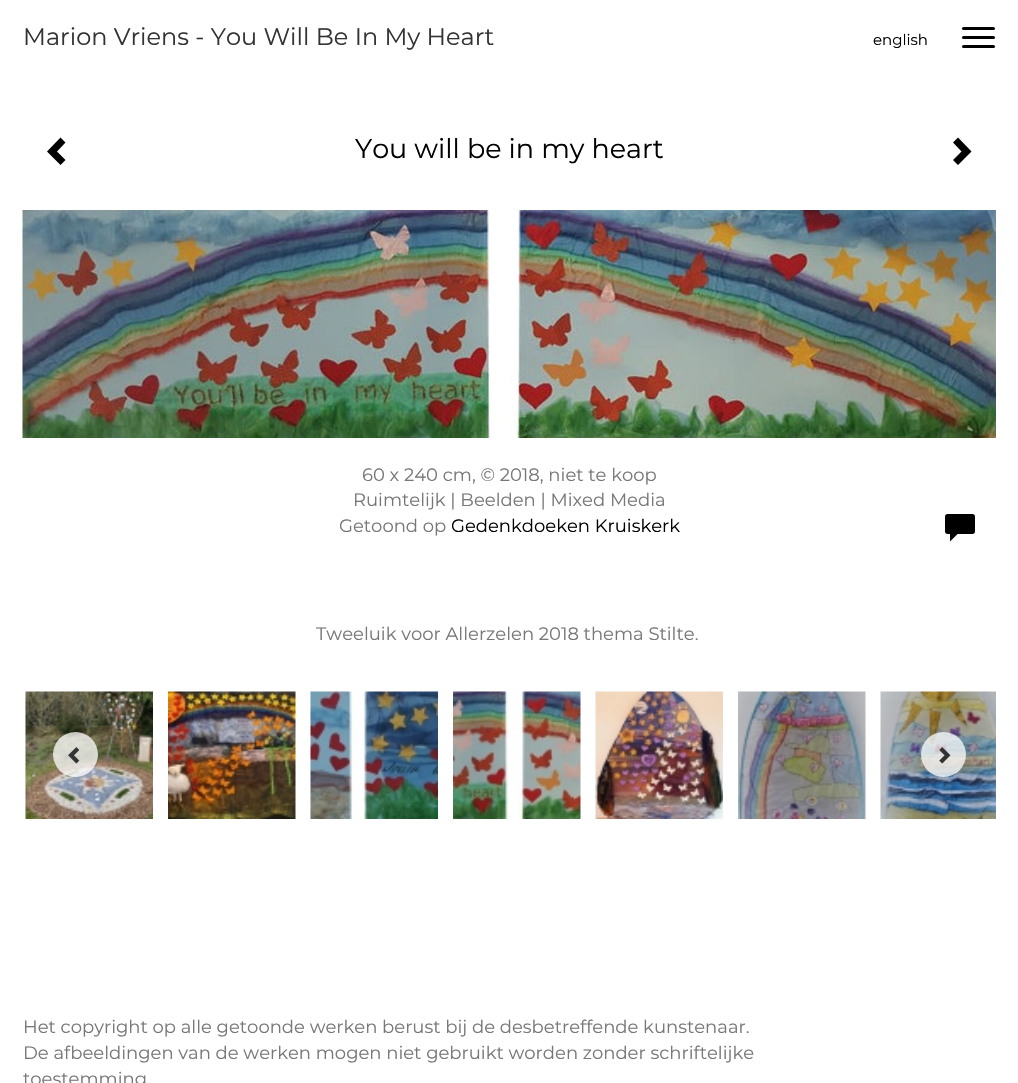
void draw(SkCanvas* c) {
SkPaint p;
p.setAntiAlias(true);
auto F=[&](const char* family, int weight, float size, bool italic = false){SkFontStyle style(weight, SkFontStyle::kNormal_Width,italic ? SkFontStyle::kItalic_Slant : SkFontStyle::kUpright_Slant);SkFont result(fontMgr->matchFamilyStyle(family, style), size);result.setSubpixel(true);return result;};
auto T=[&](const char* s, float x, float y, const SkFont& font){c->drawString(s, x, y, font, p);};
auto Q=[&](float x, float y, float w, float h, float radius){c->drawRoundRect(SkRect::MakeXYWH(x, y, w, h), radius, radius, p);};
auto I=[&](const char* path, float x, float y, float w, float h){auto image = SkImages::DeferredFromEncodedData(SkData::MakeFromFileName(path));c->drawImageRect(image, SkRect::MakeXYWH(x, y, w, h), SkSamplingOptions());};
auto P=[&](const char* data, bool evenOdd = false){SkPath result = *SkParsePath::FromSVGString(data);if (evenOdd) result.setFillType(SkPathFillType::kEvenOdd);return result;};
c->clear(0xffffffff);
auto f1 = F("Montserrat",100,24);
p.setColor(0xff333333);
T("Marion Vriens - You Will Be In My Heart",23,45,f1);
p.setColor(0xff000000);
Q(962,27,33,3,1.5);
Q(962,36,33,3,1.5);
Q(962,45,33,3,1.5);
auto f2 = F("Montserrat",100,15);
T("english",873,45,f2);
c->drawPath(P("M65.5 142.5l-8.5 9l8.5 8.5l-5 5l-13.5-13.5l13.5-14z"),p);
auto f3 = F("Montserrat",100,27);
T("You will be in my heart",355,158,f3);
c->drawPath(P("M971.5 151.5l-13.5 13.5l-5-5l8.5-8.5l-8.5-9l5-5z"),p);
I("1.png",22,210,974,228);
auto f4 = F("Montserrat",100,18);
p.setColor(0xff777777);
T("60 x 240 cm, © 2018, niet te koop",362,481,f4);
T("Ruimtelijk | Beelden | Mixed Media",353,506,f4);
T("Getoond op",339,532,f4);
p.setColor(0xff000000);
T("Gedenkdoeken Kruiskerk",451,532,f4);
I("2.png",945,514,30,28);
p.setColor(0xff777777);
T("Tweeluik voor Allerzelen 2018 thema Stilte.",316,640,f4);
I("3.png",25,691,128,128);
I("4.png",168,691,128,128);
I("5.png",310,691,128,128);
I("6.png",453,691,128,128);
I("7.png",595,691,128,128);
I("8.png",738,691,128,128);
I("9.png",880,691,116,128);
p.setColor(0xbfffffff);
c->drawCircle(75.5,754.5,22.5,p);
I("10.png",68,747,12,17);
c->drawCircle(943.5,754.5,22.5,p);
I("11.png",939,747,12,17);
p.setColor(0xff777777);
T("Het copyright op alle getoonde werken berust bij de desbetreffende kunstenaar.",23,1033,f4);
T("De afbeeldingen van de werken mogen niet gebruikt worden zonder schriftelijke",23,1059,f4);
T("toestemming",23,1085,f4);
}
